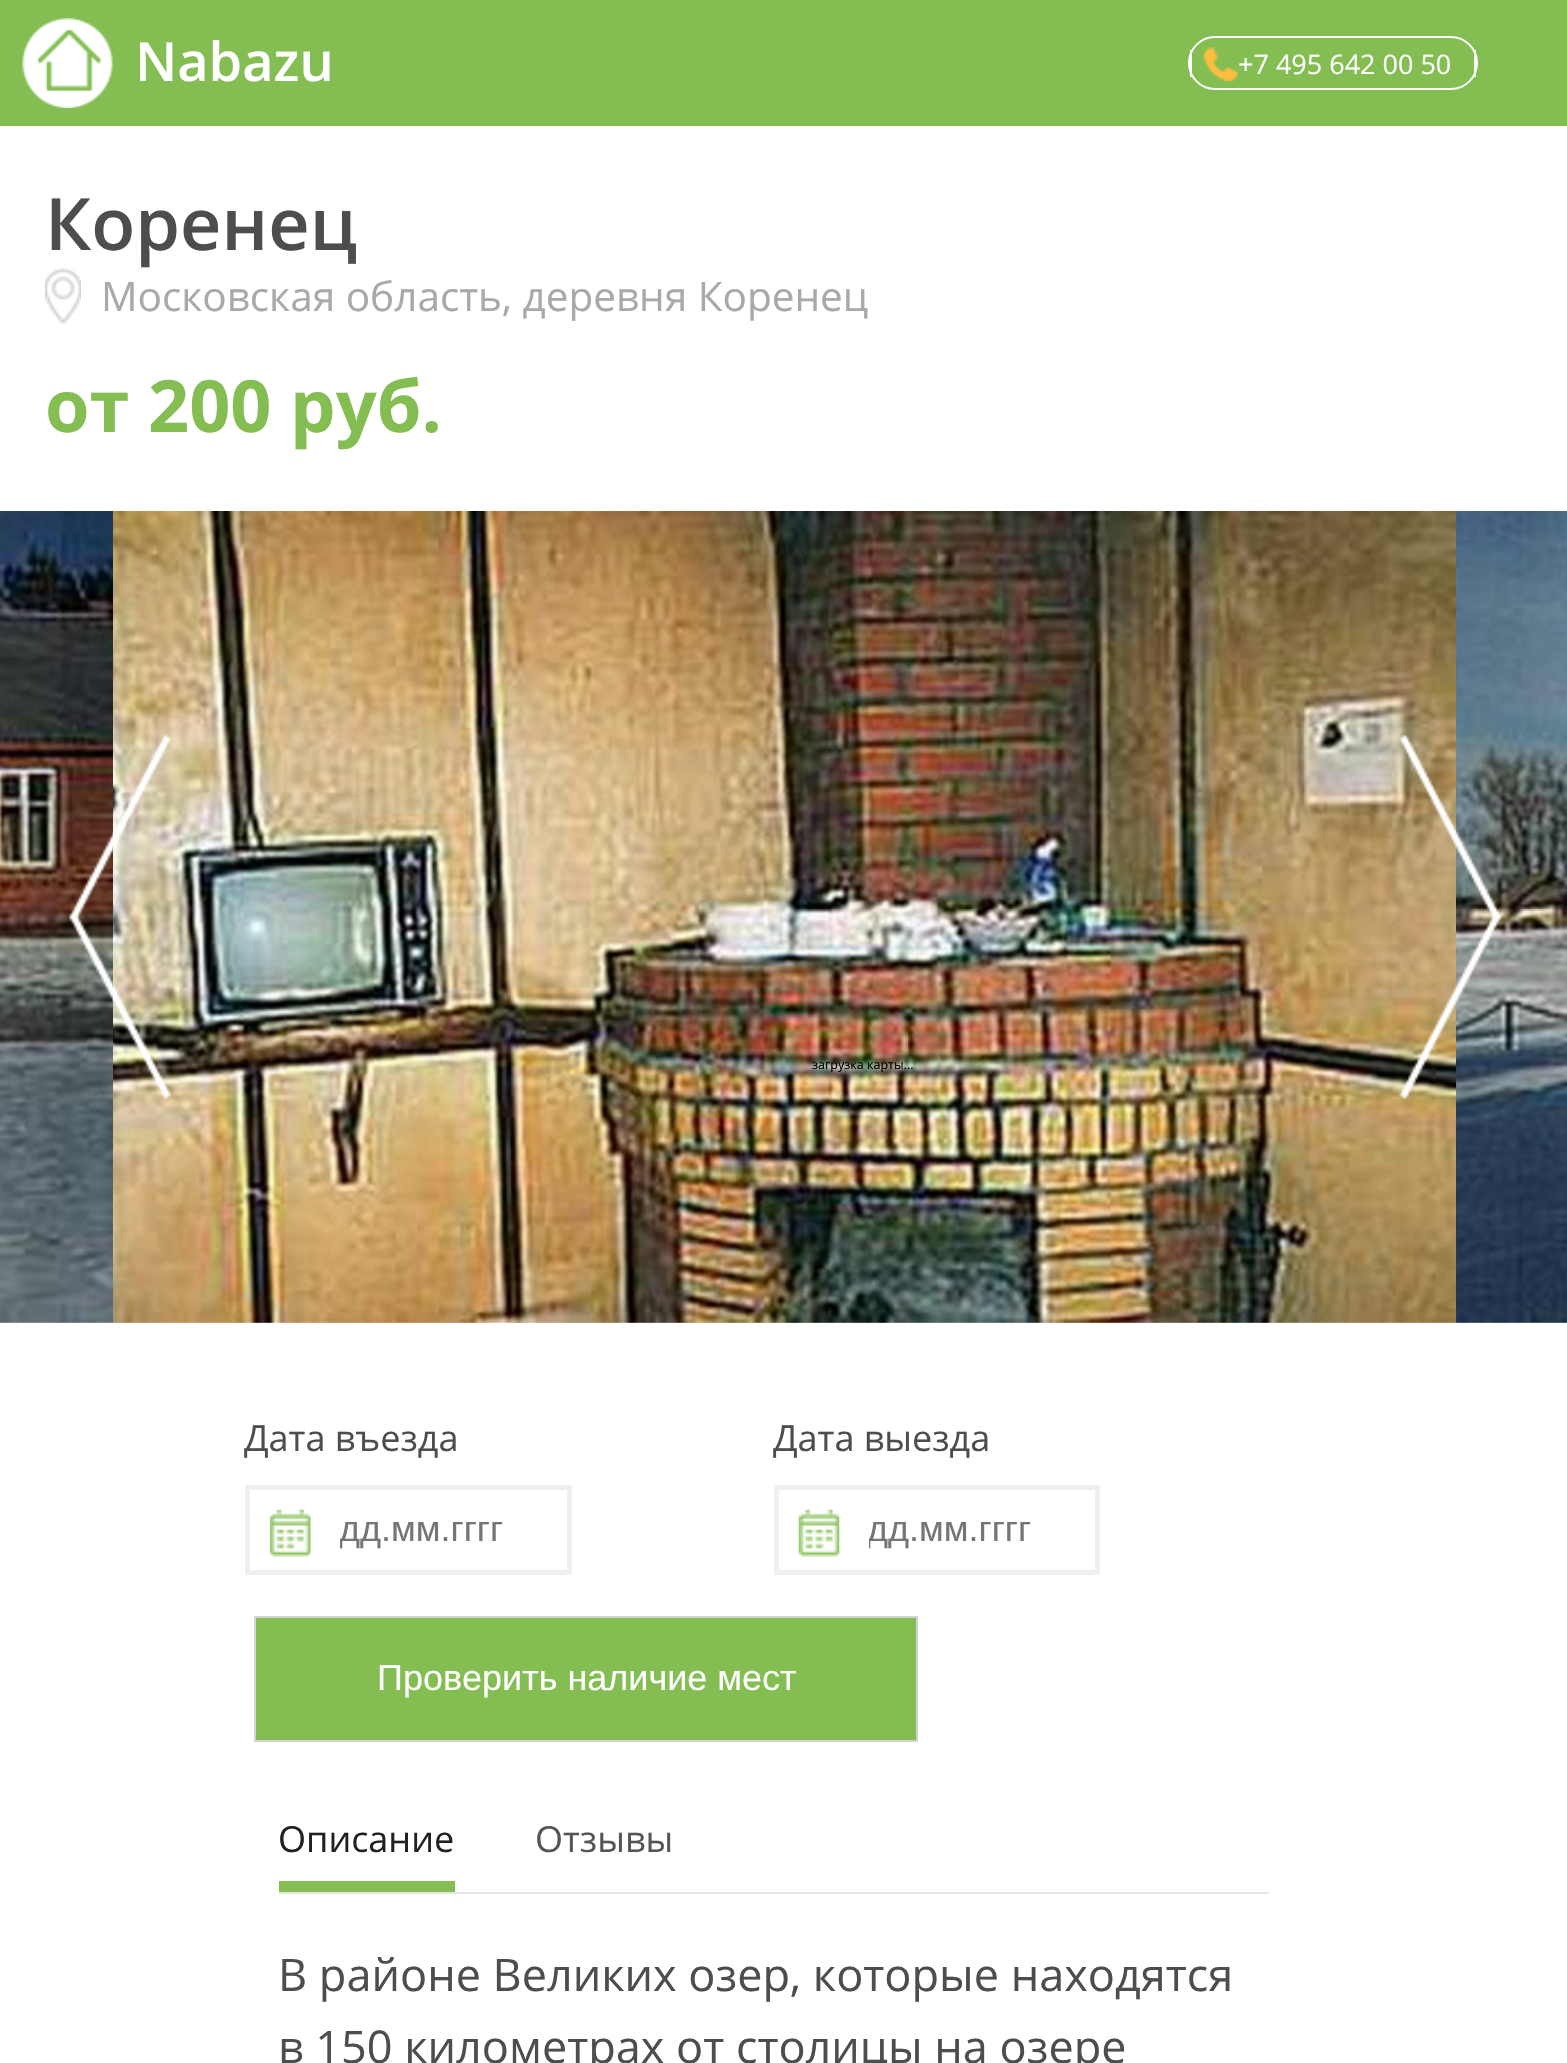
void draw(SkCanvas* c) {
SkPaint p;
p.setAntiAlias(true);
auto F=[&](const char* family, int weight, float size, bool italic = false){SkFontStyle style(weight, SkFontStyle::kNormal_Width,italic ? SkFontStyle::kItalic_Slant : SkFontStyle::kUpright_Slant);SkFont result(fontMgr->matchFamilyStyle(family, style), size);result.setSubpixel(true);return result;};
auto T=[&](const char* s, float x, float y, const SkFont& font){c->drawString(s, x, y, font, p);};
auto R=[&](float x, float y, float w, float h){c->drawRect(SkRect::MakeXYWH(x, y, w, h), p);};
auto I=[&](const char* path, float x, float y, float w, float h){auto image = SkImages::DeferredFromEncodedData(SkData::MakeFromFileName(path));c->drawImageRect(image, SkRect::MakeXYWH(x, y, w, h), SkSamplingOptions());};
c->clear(0xffffffff);
p.setColor(0xff84be53);
R(0,0,1567,126);
I("1.png",22,18,91,90);
auto f1 = F("Open Sans",600,54);
p.setColor(0xffffffff);
T("Nabazu",135,81,f1);
I("2.png",1203,47,35,34);
p.setStroke(true);
p.setStrokeWidth(2);
c->drawRoundRect(SkRect::MakeXYWH(1189,37,288,52),26,26,p);
p.setStroke(false);
R(1474,50,2,27);
R(1190,50,2,27);
auto f2 = F("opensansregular",400,27);
T("+7 495 642 00 50",1238,74,f2);
I("3.png",45,267,36,57);
auto f3 = F("Open Sans",600,72);
p.setColor(0xff4d4d4d);
T("Коренец",45,250,f3);
auto f4 = F("opensansregular",400,40.5);
p.setColor(0xffa9a9a9);
T("Московская область, деревня Коренец",101,311,f4);
auto f5 = F("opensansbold",700,72);
p.setColor(0xff84be53);
T("от 200 руб.",45,432,f5);
I("4.png",0,511,113,812);
I("5.png",113,511,1343,812);
I("6.png",1456,511,111,812);
I("7.png",69,734,102,366);
I("8.png",1399,734,102,366);
auto f6 = F("opensansregular",400,12.5);
p.setColor(0xff000000);
T("загрузка карты...",812,1069,f6);
auto f7 = F("opensansregular",400,36);
p.setColor(0xff4d4d4d);
T("Дата въезда",244,1451,f7);
I("9.png",270,1509,41,48);
p.setStroke(true);
p.setStrokeWidth(5);
p.setColor(0xfff1f0f0);
c->drawRect(SkRect::MakeXYWH(247.5,1487.5,322,85),p);
c->save();
c->clipRect(SkRect::MakeXYWH(340,1510,205,40));
auto f8 = F("Liberation Sans",400,36);
p.setStroke(false);
p.setColor(0xff757575);
T("дд.мм.гггг",339,1541,f8);
c->restore();
p.setColor(0xff4d4d4d);
T("Дата выезда",773,1451,f7);
I("10.png",798,1509,42,48);
p.setStroke(true);
p.setColor(0xfff1f0f0);
c->drawRect(SkRect::MakeXYWH(776.5,1487.5,321,85),p);
c->save();
c->clipRect(SkRect::MakeXYWH(869,1510,204,40));
p.setStroke(false);
p.setColor(0xff757575);
T("дд.мм.гггг",867,1541,f8);
c->restore();
p.setColor(0xff84be53);
c->drawRect(SkRect::MakeXYWH(255,1617,662,124),p);
p.setStroke(true);
p.setStrokeWidth(2);
p.setColor(0xffd3d3d3);
c->drawRect(SkRect::MakeXYWH(255,1617,662,124),p);
p.setStroke(false);
p.setColor(0xffffffff);
T("Проверить наличие мест",377,1690,f8);
p.setColor(0xffe5e5e5);
R(279,1892,990,2);
p.setColor(0xff84be53);
R(279,1881,176,11);
p.setColor(0xff212121);
T("Описание",278,1852,f7);
p.setColor(0xff555555);
T("Отзывы",535,1852,f7);
auto f9 = F("opensansregular",400,45);
p.setColor(0xff4d4d4d);
T("В районе Великих озер, которые находятся",278,1991,f9);
T("в 150 километрах от столицы на озере",278,2063,f9);
}
